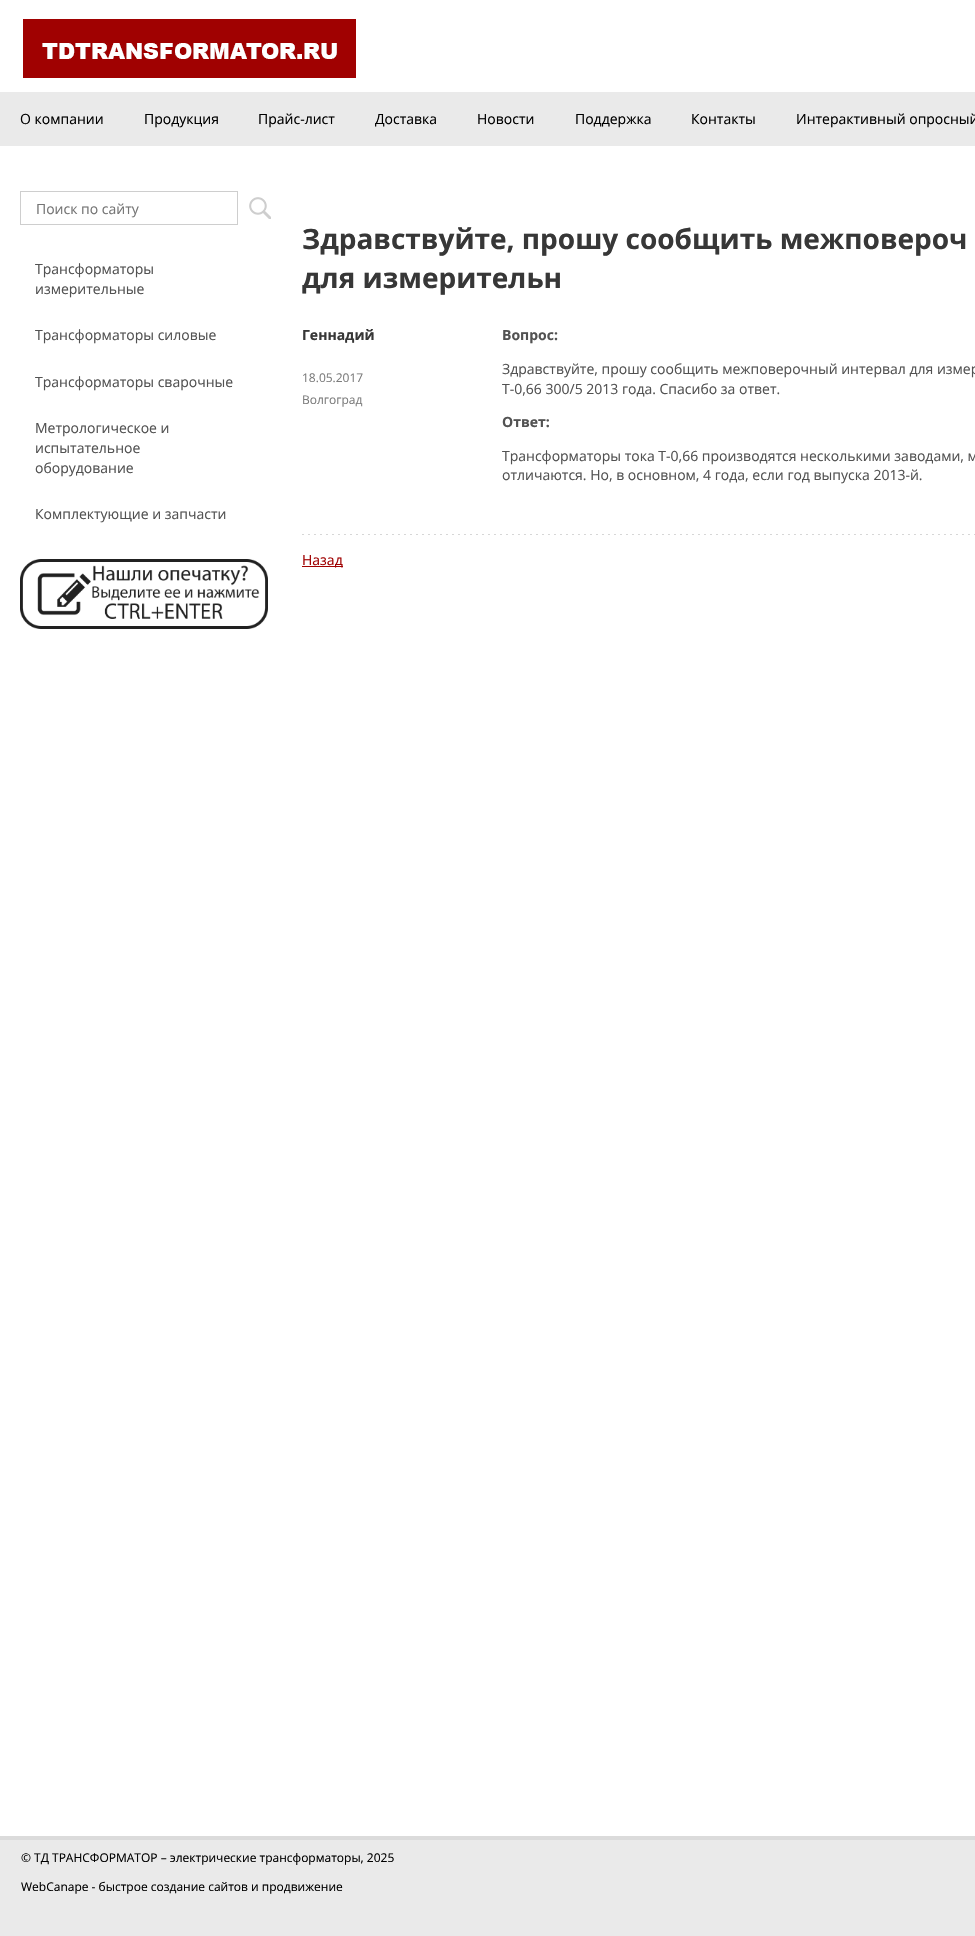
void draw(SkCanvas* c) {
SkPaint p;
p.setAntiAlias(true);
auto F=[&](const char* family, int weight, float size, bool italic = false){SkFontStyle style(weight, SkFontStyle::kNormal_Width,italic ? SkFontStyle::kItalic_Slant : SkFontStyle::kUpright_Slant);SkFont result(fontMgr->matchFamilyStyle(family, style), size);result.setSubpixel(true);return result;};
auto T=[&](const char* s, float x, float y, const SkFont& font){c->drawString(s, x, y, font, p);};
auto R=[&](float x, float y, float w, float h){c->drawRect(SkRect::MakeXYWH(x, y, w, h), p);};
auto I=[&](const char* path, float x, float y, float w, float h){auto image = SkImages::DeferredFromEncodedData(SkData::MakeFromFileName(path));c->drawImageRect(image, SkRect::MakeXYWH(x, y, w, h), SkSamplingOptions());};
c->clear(0xffffffff);
I("1.png",23,19,333,59);
p.setColor(0xffeaeaea);
R(0,92,975,54);
auto f1 = F("Open Sans",400,14);
p.setColor(0xff000000);
T("О компании",20,124,f1);
T("Продукция",144,124,f1);
T("Прайс-лист",258,124,f1);
T("Доставка",375,124,f1);
T("Новости",477,124,f1);
T("Поддержка",575,124,f1);
T("Контакты",691,124,f1);
T("Интерактивный опросный",796,124,f1);
p.setStroke(true);
p.setStrokeWidth(1);
p.setColor(0xffcecece);
c->drawRect(SkRect::MakeXYWH(20.5,191.5,217,33),p);
p.setStroke(false);
p.setColor(0xff757575);
T("Поиск по сайту",36,214,f1);
I("2.png",249,197,22,22);
p.setColor(0xff525252);
T("Трансформаторы",35,274,f1);
T("измерительные",35,294,f1);
T("Трансформаторы силовые",35,340,f1);
T("Трансформаторы сварочные",35,387,f1);
T("Метрологическое и",35,433,f1);
T("испытательное",35,453,f1);
T("оборудование",35,473,f1);
T("Комплектующие и запчасти",35,519,f1);
I("3.png",20,559,248,70);
auto f2 = F("Open Sans",700,28);
p.setColor(0xff373737);
T("Здравствуйте, прошу сообщить межповероч",302,249,f2);
T("для измерительн",302,288,f2);
I("4.png",302,534,673,1);
auto f3 = F("Open Sans",700,14);
T("Геннадий",302,340,f3);
auto f4 = F("Open Sans",400,12);
p.setColor(0xff7c7c7c);
T("18.05.2017",302,382,f4);
T("Волгоград",302,404,f4);
p.setColor(0xff525252);
T("Вопрос:",502,340,f3);
T("Здравствуйте, прошу сообщить межповерочный интервал для измер",502,374,f1);
T("Т-0,66 300/5 2013 года. Спасибо за ответ.",502,394,f1);
T("Ответ:",502,427,f3);
T("Трансформаторы тока Т-0,66 производятся несколькими заводами, м",502,461,f1);
T("отличаются. Но, в основном, 4 года, если год выпуска 2013-й.",502,480,f1);
p.setColor(0xffa00101);
R(302,566,41,1);
T("Назад",302,565,f1);
p.setColor(0xffeaeaea);
R(0,1840,975,96);
p.setColor(0xffdbdbdb);
R(0,1836,975,4);
p.setColor(0xff000000);
T("© ТД ТРАНСФОРМАТОР – электрические трансформаторы, 2025",21,1862,f4);
T("WebCanape - быстрое создание сайтов и продвижение",21,1891,f4);
}
